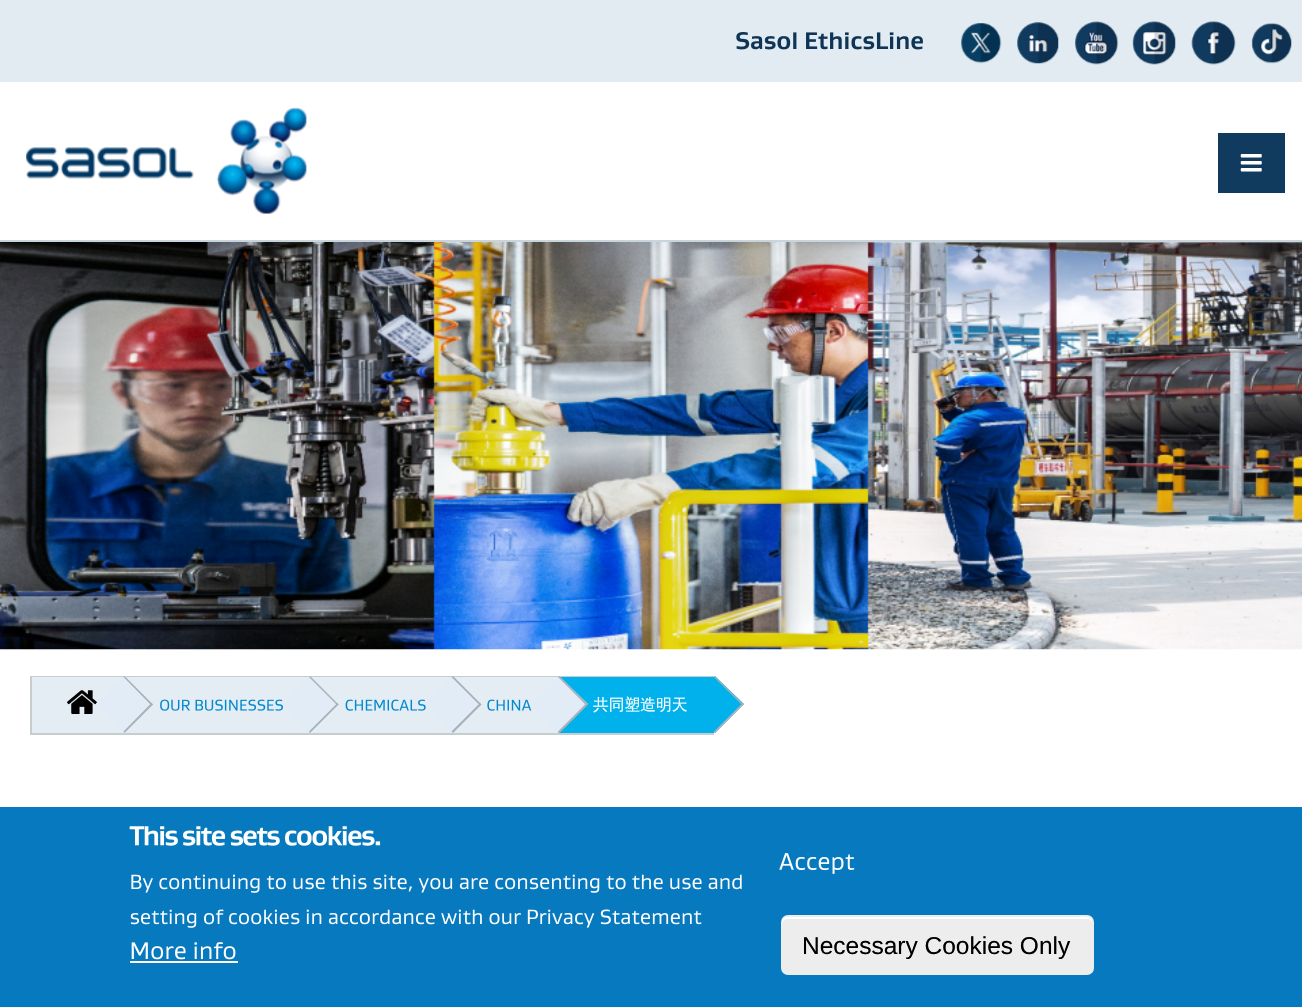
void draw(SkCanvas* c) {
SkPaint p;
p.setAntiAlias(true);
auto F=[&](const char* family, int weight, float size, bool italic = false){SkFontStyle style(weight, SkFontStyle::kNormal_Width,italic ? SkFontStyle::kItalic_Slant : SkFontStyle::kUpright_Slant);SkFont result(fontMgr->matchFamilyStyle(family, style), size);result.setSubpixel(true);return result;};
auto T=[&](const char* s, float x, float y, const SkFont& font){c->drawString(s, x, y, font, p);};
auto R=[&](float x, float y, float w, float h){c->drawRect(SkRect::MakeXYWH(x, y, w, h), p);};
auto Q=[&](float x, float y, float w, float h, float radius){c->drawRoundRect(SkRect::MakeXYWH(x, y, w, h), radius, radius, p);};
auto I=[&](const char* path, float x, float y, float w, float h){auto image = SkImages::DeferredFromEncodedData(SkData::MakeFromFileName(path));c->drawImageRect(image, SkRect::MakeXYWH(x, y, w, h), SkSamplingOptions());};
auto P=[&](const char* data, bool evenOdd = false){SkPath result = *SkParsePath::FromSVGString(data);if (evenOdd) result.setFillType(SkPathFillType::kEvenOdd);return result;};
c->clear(0xffffffff);
p.setColor(0xffe1ebf1);
R(0,0,1302,82);
I("1.png",736,32,187,18);
I("2.png",961,23,41,41);
I("3.png",1017,22,42,42);
I("4.png",1075,21,44,44);
I("5.png",1132,21,44,44);
I("6.png",1191,21,45,44);
I("7.png",1251,23,41,41);
I("8.png",26,107,281,107);
p.setColor(0xffc8d5dd);
R(0,240,1302,2);
p.setColor(0xff113a5f);
R(1218,133,67,60);
I("9.png",1240,154,22,18);
I("10.png",0,242,1302,408);
p.setColor(0xff01b1ec);
c->drawPath(P("M687 704l28-28l29 28l-29 29z"),p);
p.setColor(0xffc7cccf);
R(30,676,684,1);
R(30,733,684,2);
R(30,676,2,59);
p.setColor(0xffe4ecf4);
R(32,677,526,56);
I("11.png",67,690,30,24);
p.setColor(0xffe2ecf6);
c->drawPath(P("M96 704l29-28l28 28l-28 29z"),p);
p.setColor(0xffa7b0b7);
c->drawPath(P("M123.5 677l1-1l28.5 28.5l-1.5 1z"),p);
c->drawPath(P("M123.5 731.5l28-28.5l1.5 1.5l-28.5 28.5z"),p);
I("12.png",160,699,123,12);
p.setColor(0xffe2ecf6);
c->drawPath(P("M282 704l28-28l29 28l-29 29z"),p);
p.setColor(0xffa7b0b7);
c->drawPath(P("M309 677l1-1l28.5 28.5l-1 1z"),p);
c->drawPath(P("M309 731.5l28.5-28.5l1 1.5l-28.5 28.5z"),p);
I("13.png",345,699,81,12);
p.setColor(0xffe2ecf6);
c->drawPath(P("M425 704l28-28l28 28l-28 29z"),p);
p.setColor(0xffa7b0b7);
c->drawPath(P("M451.5 677l1.5-1l28.5 28.5l-1.5 1z"),p);
c->drawPath(P("M451.5 731.5l28.5-28.5l1.5 1.5l-28.5 28.5z"),p);
I("14.png",487,699,45,12);
p.setColor(0xff01b1ec);
R(558,677,156,56);
p.setColor(0xffe2ecf6);
c->drawPath(P("M531 704l28-28l29 28l-29 29z"),p);
p.setColor(0xffa7b0b7);
c->drawPath(P("M558 677l1.5-1l28.5 28.5l-1.5 1z"),p);
c->drawPath(P("M558 731.5l28.5-28.5l1.5 1.5l-28.5 28.5z"),p);
auto f1 = F("WenQuanYi Zen Hei",500,15.75);
p.setColor(0xffffffff);
T("共同塑造明天",593,710,f1);
p.setColor(0xffa7b0b7);
c->drawPath(P("M714 677l1-1l28.5 28.5l-1 1z"),p);
c->drawPath(P("M714 731.5l28.5-28.5l1 1.5l-28.5 28.5z"),p);
p.setColor(0xff0779bf);
R(0,807,1302,200);
I("15.png",129,826,252,20);
I("16.png",131,874,611,19);
I("17.png",130,909,572,19);
I("18.png",131,942,105,18);
p.setColor(0xffffffff);
R(130,961,108,2);
I("19.png",779,853,76,21);
p.setColor(0xffededed);
Q(781,915,313,60,7);
p.setColor(0xffffffff);
c->drawPath(P("M788 919h299c3 0 5 2 5 5v-2c0-3-2-5-5-5h-300c-3 0-5 2-5 5v2c0-3 3-5 6-5z"),p);
auto f2 = F("Liberation Sans",400,24.5);
p.setColor(0xff000000);
T("Necessary Cookies Only",802,954,f2);
}
